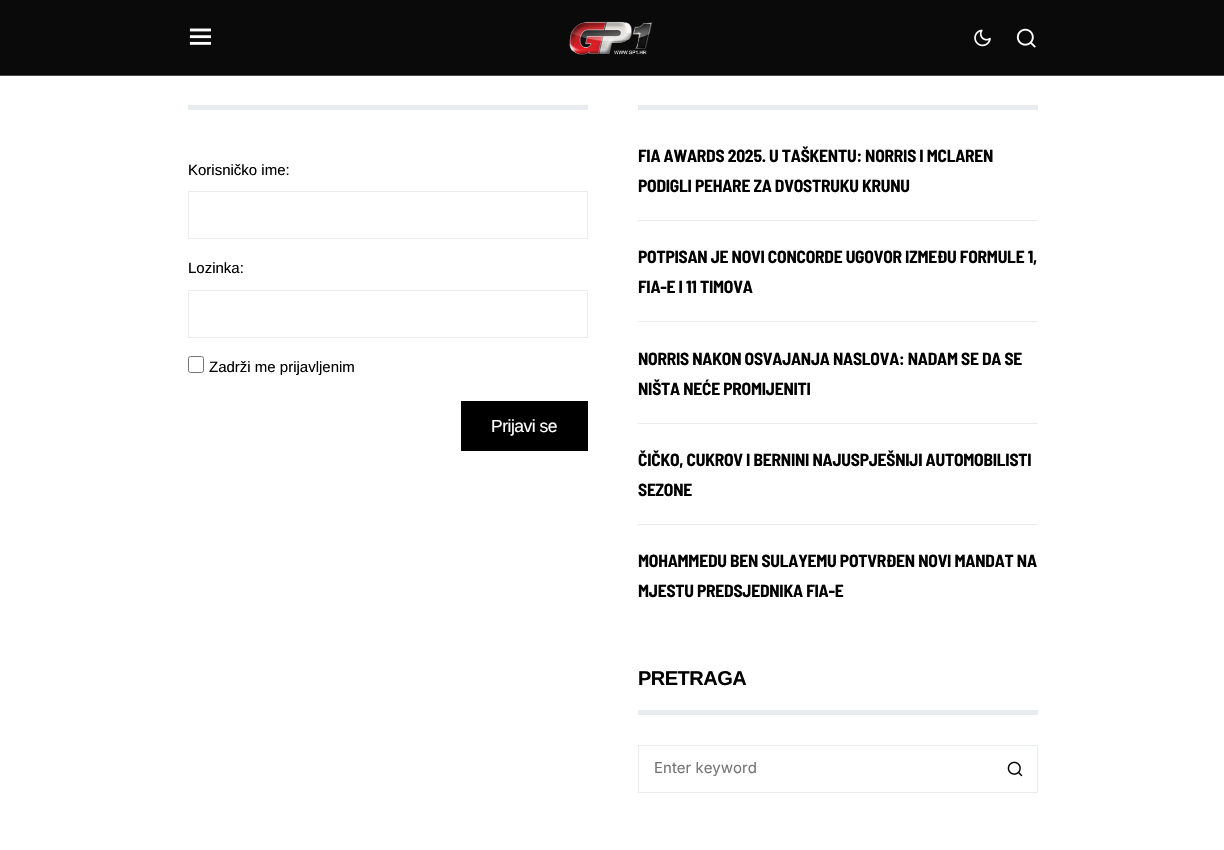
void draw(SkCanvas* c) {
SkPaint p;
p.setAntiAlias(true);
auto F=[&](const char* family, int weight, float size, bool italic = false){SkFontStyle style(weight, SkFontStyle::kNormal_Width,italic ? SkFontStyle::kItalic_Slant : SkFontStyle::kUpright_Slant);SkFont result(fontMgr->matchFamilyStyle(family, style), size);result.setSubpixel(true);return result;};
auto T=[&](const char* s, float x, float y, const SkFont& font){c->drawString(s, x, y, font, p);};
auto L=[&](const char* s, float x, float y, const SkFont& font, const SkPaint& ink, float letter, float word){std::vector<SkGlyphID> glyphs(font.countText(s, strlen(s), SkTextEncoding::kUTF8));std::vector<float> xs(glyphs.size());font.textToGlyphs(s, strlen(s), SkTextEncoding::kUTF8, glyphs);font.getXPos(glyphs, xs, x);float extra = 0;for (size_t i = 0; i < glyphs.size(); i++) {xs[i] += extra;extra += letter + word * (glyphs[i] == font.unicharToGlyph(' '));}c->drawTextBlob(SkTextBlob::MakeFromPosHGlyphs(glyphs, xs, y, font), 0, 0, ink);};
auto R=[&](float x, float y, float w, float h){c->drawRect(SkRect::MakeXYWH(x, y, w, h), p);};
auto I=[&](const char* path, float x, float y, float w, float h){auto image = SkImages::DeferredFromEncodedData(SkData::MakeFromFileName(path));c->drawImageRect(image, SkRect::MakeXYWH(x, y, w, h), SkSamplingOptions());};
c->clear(0xffffffff);
p.setColor(0xff0a0a0a);
R(0,0,1224,75);
p.setColor(0xff494949);
R(0,75,1224,1);
I("1.png",189,28,22,17);
I("2.png",569,21,84,35);
I("3.png",974,29,17,18);
I("4.png",1016,28,20,20);
p.setColor(0xffe9ecef);
R(188,105,400,5);
auto f1 = F("Liberation Sans",400,15);
p.setColor(0xff000000);
T("Korisničko ime:",188,175,f1);
p.setStroke(true);
p.setStrokeWidth(1);
p.setColor(0xffe9ecef);
c->drawRect(SkRect::MakeXYWH(188.5,191.5,399,47),p);
p.setStroke(false);
p.setColor(0xff000000);
T("Lozinka:",188,273,f1);
p.setStroke(true);
p.setColor(0xffe9ecef);
c->drawRect(SkRect::MakeXYWH(188.5,290.5,399,47),p);
p.setColor(0xff767676);
c->drawRoundRect(SkRect::MakeXYWH(188.5,356.5,15,16),2,2,p);
p.setStroke(false);
p.setColor(0xff000000);
T("Zadrži me prijavljenim",209,372,f1);
R(461,401,127,50);
auto f2 = F("Liberation Sans",400,17.5);
p.setColor(0xffffffff);
L("Prijavi se",491,432,f2,p,-.5,0);
p.setColor(0xffe9ecef);
R(638,105,400,5);
R(638,220,400,1);
auto f3 = F("Barlow Semi Condensed",700,17.5);
p.setColor(0xff000000);
L("FIA AWARDS 2025. U TAŠKENTU: NORRIS I MCLAREN",638,162,f3,p,-.22,0);
L("PODIGLI PEHARE ZA DVOSTRUKU KRUNU",638,192,f3,p,-.22,0);
p.setColor(0xffe9ecef);
R(638,321,400,1);
p.setColor(0xff000000);
L("POTPISAN JE NOVI CONCORDE UGOVOR IZMEĐU FORMULE 1,",638,263,f3,p,-.22,0);
L("FIA-E I 11 TIMOVA",638,293,f3,p,-.22,0);
p.setColor(0xffe9ecef);
R(638,423,400,1);
p.setColor(0xff000000);
L("NORRIS NAKON OSVAJANJA NASLOVA: NADAM SE DA SE",638,365,f3,p,-.22,0);
L("NIŠTA NEĆE PROMIJENITI",638,395,f3,p,-.22,0);
p.setColor(0xffe9ecef);
R(638,524,400,1);
p.setColor(0xff000000);
L("ČIČKO, CUKROV I BERNINI NAJUSPJEŠNIJI AUTOMOBILISTI",638,466,f3,p,-.22,0);
L("SEZONE",638,496,f3,p,-.22,0);
L("MOHAMMEDU BEN SULAYEMU POTVRĐEN NOVI MANDAT NA",638,567,f3,p,-.22,0);
L("MJESTU PREDSJEDNIKA FIA-E",638,597,f3,p,-.22,0);
p.setColor(0xffe9ecef);
R(638,710,400,5);
auto f4 = F("Liberation Sans",700,20);
p.setColor(0xff000000);
L("PRETRAGA",638,685,f4,p,-.5,0);
p.setStroke(true);
p.setColor(0xffe9ecef);
c->drawRect(SkRect::MakeXYWH(638.5,745.5,399,47),p);
auto f5 = F("Inter",400,15);
p.setStroke(false);
p.setColor(0xff757575);
T("Enter keyword",654,773,f5);
I("5.png",1007,761,16,16);
}
